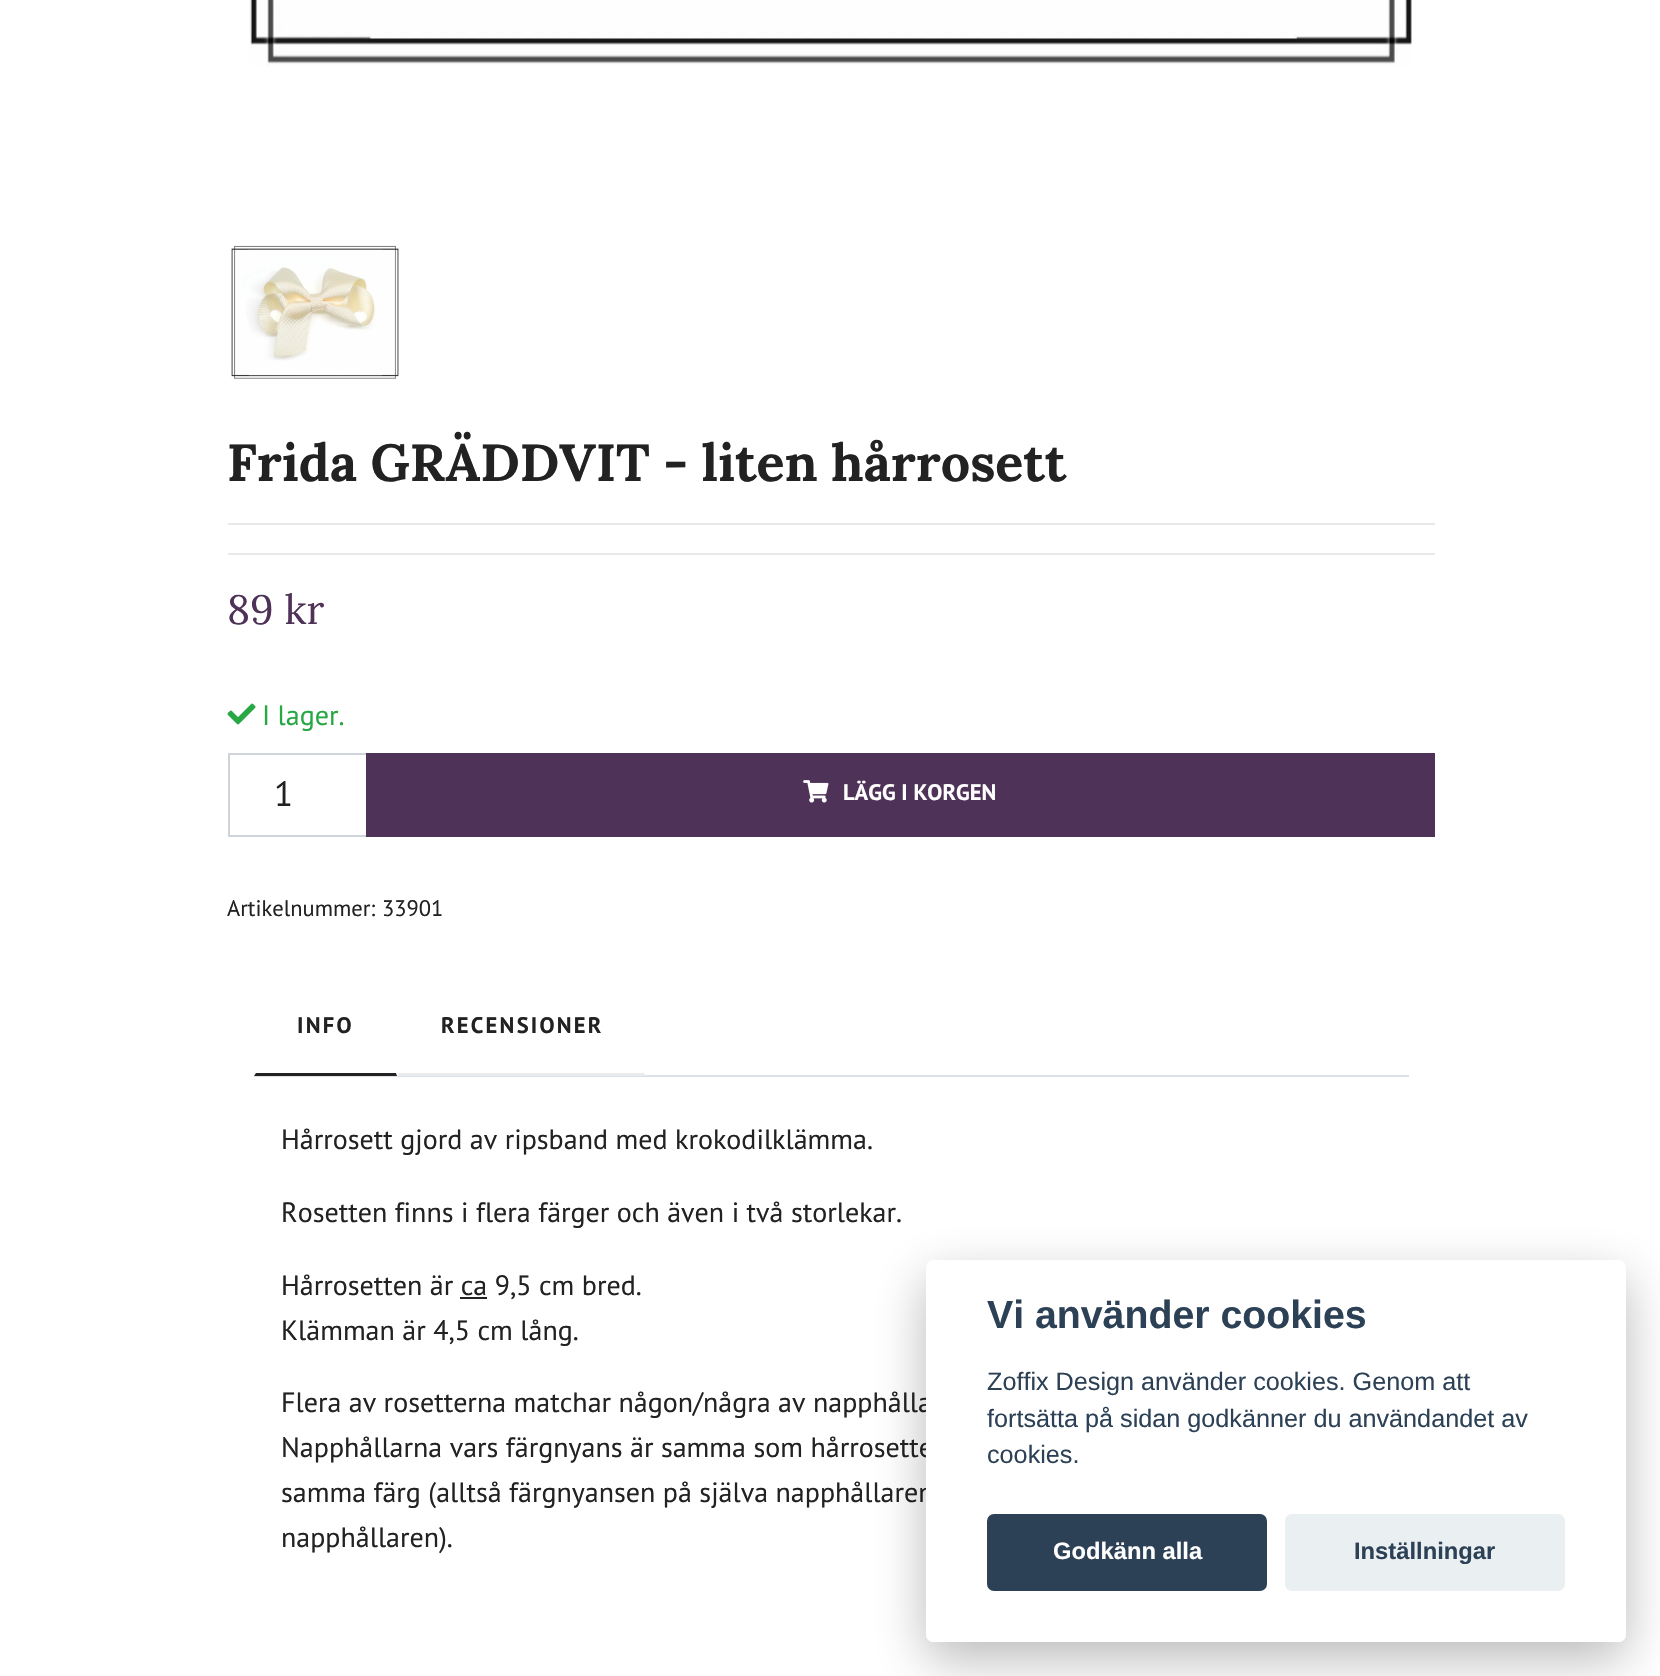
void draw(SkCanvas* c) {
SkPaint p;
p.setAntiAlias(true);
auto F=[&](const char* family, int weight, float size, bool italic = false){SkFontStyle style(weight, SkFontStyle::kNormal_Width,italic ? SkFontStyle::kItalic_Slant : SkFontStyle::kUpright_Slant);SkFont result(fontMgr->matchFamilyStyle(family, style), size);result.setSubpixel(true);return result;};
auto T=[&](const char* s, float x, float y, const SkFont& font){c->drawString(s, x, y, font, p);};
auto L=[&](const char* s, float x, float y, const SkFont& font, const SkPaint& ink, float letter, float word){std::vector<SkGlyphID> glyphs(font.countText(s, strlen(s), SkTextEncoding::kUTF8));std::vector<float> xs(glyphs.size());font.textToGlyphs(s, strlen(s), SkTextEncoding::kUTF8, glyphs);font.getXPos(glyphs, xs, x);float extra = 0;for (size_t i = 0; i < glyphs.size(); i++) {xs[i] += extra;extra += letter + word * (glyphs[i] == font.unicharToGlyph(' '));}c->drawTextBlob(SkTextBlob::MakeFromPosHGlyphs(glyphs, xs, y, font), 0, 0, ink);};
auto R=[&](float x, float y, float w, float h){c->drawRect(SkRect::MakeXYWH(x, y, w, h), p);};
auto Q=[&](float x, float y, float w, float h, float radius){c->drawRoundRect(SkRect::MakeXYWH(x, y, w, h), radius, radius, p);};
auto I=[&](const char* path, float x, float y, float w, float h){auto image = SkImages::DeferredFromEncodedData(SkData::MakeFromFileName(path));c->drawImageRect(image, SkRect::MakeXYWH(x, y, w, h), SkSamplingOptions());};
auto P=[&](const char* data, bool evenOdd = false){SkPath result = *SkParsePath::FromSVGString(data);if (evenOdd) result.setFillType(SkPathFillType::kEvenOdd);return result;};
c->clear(0xffffffff);
I("1.png",249,0,1163,66);
I("2.png",231,245,168,134);
auto f1 = F("Lora",700,52);
p.setColor(0xff222222);
T("Frida GRÄDDVIT - liten hårrosett",227,481,f1);
p.setColor(0xffe9e9e9);
R(228,523,1207,2);
R(228,553,1207,2);
auto f2 = F("Lora",400,41);
p.setColor(0xff4f3258);
T("89 kr",227,624,f2);
I("3.png",227,703,29,22);
auto f3 = F("PT Sans",400,28);
p.setColor(0xff28a745);
T("I lager.",262,725,f3);
p.setStroke(true);
p.setStrokeWidth(2);
p.setColor(0xffced4da);
c->drawRect(SkRect::MakeXYWH(229,754,138,82),p);
auto f4 = F("PT Sans",400,35);
p.setStroke(false);
p.setColor(0xff222222);
T("1",274,806,f4);
p.setColor(0xff4f3258);
R(366,753,1069,84);
I("4.png",803,780,26,23);
auto f5 = F("PT Sans",700,22.5);
p.setColor(0xffffffff);
T("LÄGG I KORGEN",843,800,f5);
auto f6 = F("PT Sans",400,22.5);
p.setColor(0xff222222);
T("Artikelnummer:",227,916,f6);
T("33901",382,916,f6);
p.setColor(0xffdee2e6);
R(254,1075,1155,2);
p.setColor(0xffffffff);
R(254,1075,143,1);
p.setColor(0xff222222);
c->drawPath(P("M397 1076h-143l2-3h140z"),p);
L("INFO",297,1033,f5,p,2.25,0);
p.setColor(0xffffffff);
c->drawPath(P("M646 978v98l-2-3v-93z"),p);
p.setColor(0xffe9ecef);
c->drawPath(P("M646 1076h-249l2-3h245z"),p);
p.setColor(0xffffffff);
c->drawPath(P("M397 1076v-98l2 2v93z"),p);
p.setColor(0xff222222);
L("RECENSIONER",441,1033,f5,p,2.25,0);
T("Hårrosett gjord av ripsband med krokodilklämma.",281,1149,f3);
T("Rosetten finns i flera färger och även i två storlekar.",281,1222,f3);
T("Hårrosetten är ca 9,5 cm bred.",281,1295,f3);
R(460,1297,27,2);
T("Klämman är 4,5 cm lång.",281,1340,f3);
T("Flera av rosetterna matchar någon/några av napphålla",281,1412,f3);
T("Napphållarna vars färgnyans är samma som hårrosette",281,1457,f3);
T("samma färg (alltså färgnyansen på själva napphållaren",281,1502,f3);
T("napphållaren).",281,1547,f3);
p.setColor(0x47020203);
p.setMaskFilter(SkMaskFilter::MakeBlur(kNormal_SkBlurStyle, 26));
c->drawRoundRect(SkRect::MakeXYWH(926,1278,700,381),7,7,p);
p.setMaskFilter(nullptr);
p.setColor(0xffffffff);
Q(926,1260,700,382,7);
auto f7 = F("Liberation Sans",700,39.25);
p.setColor(0xff2d4156);
T("Vi använder cookies",987,1328,f7);
auto f8 = F("Liberation Sans",400,25.2);
T("Zoffix Design använder cookies. Genom att",987,1390,f8);
T("fortsätta på sidan godkänner du användandet av",987,1427,f8);
T("cookies.",987,1463,f8);
Q(987,1514,280,77,7);
auto f9 = F("Liberation Sans",700,23.75);
p.setColor(0xffffffff);
T("Godkänn alla",1053,1559,f9);
p.setColor(0xffeaeff2);
Q(1285,1514,280,77,7);
p.setColor(0xff2d4156);
T("Inställningar",1354,1559,f9);
}
